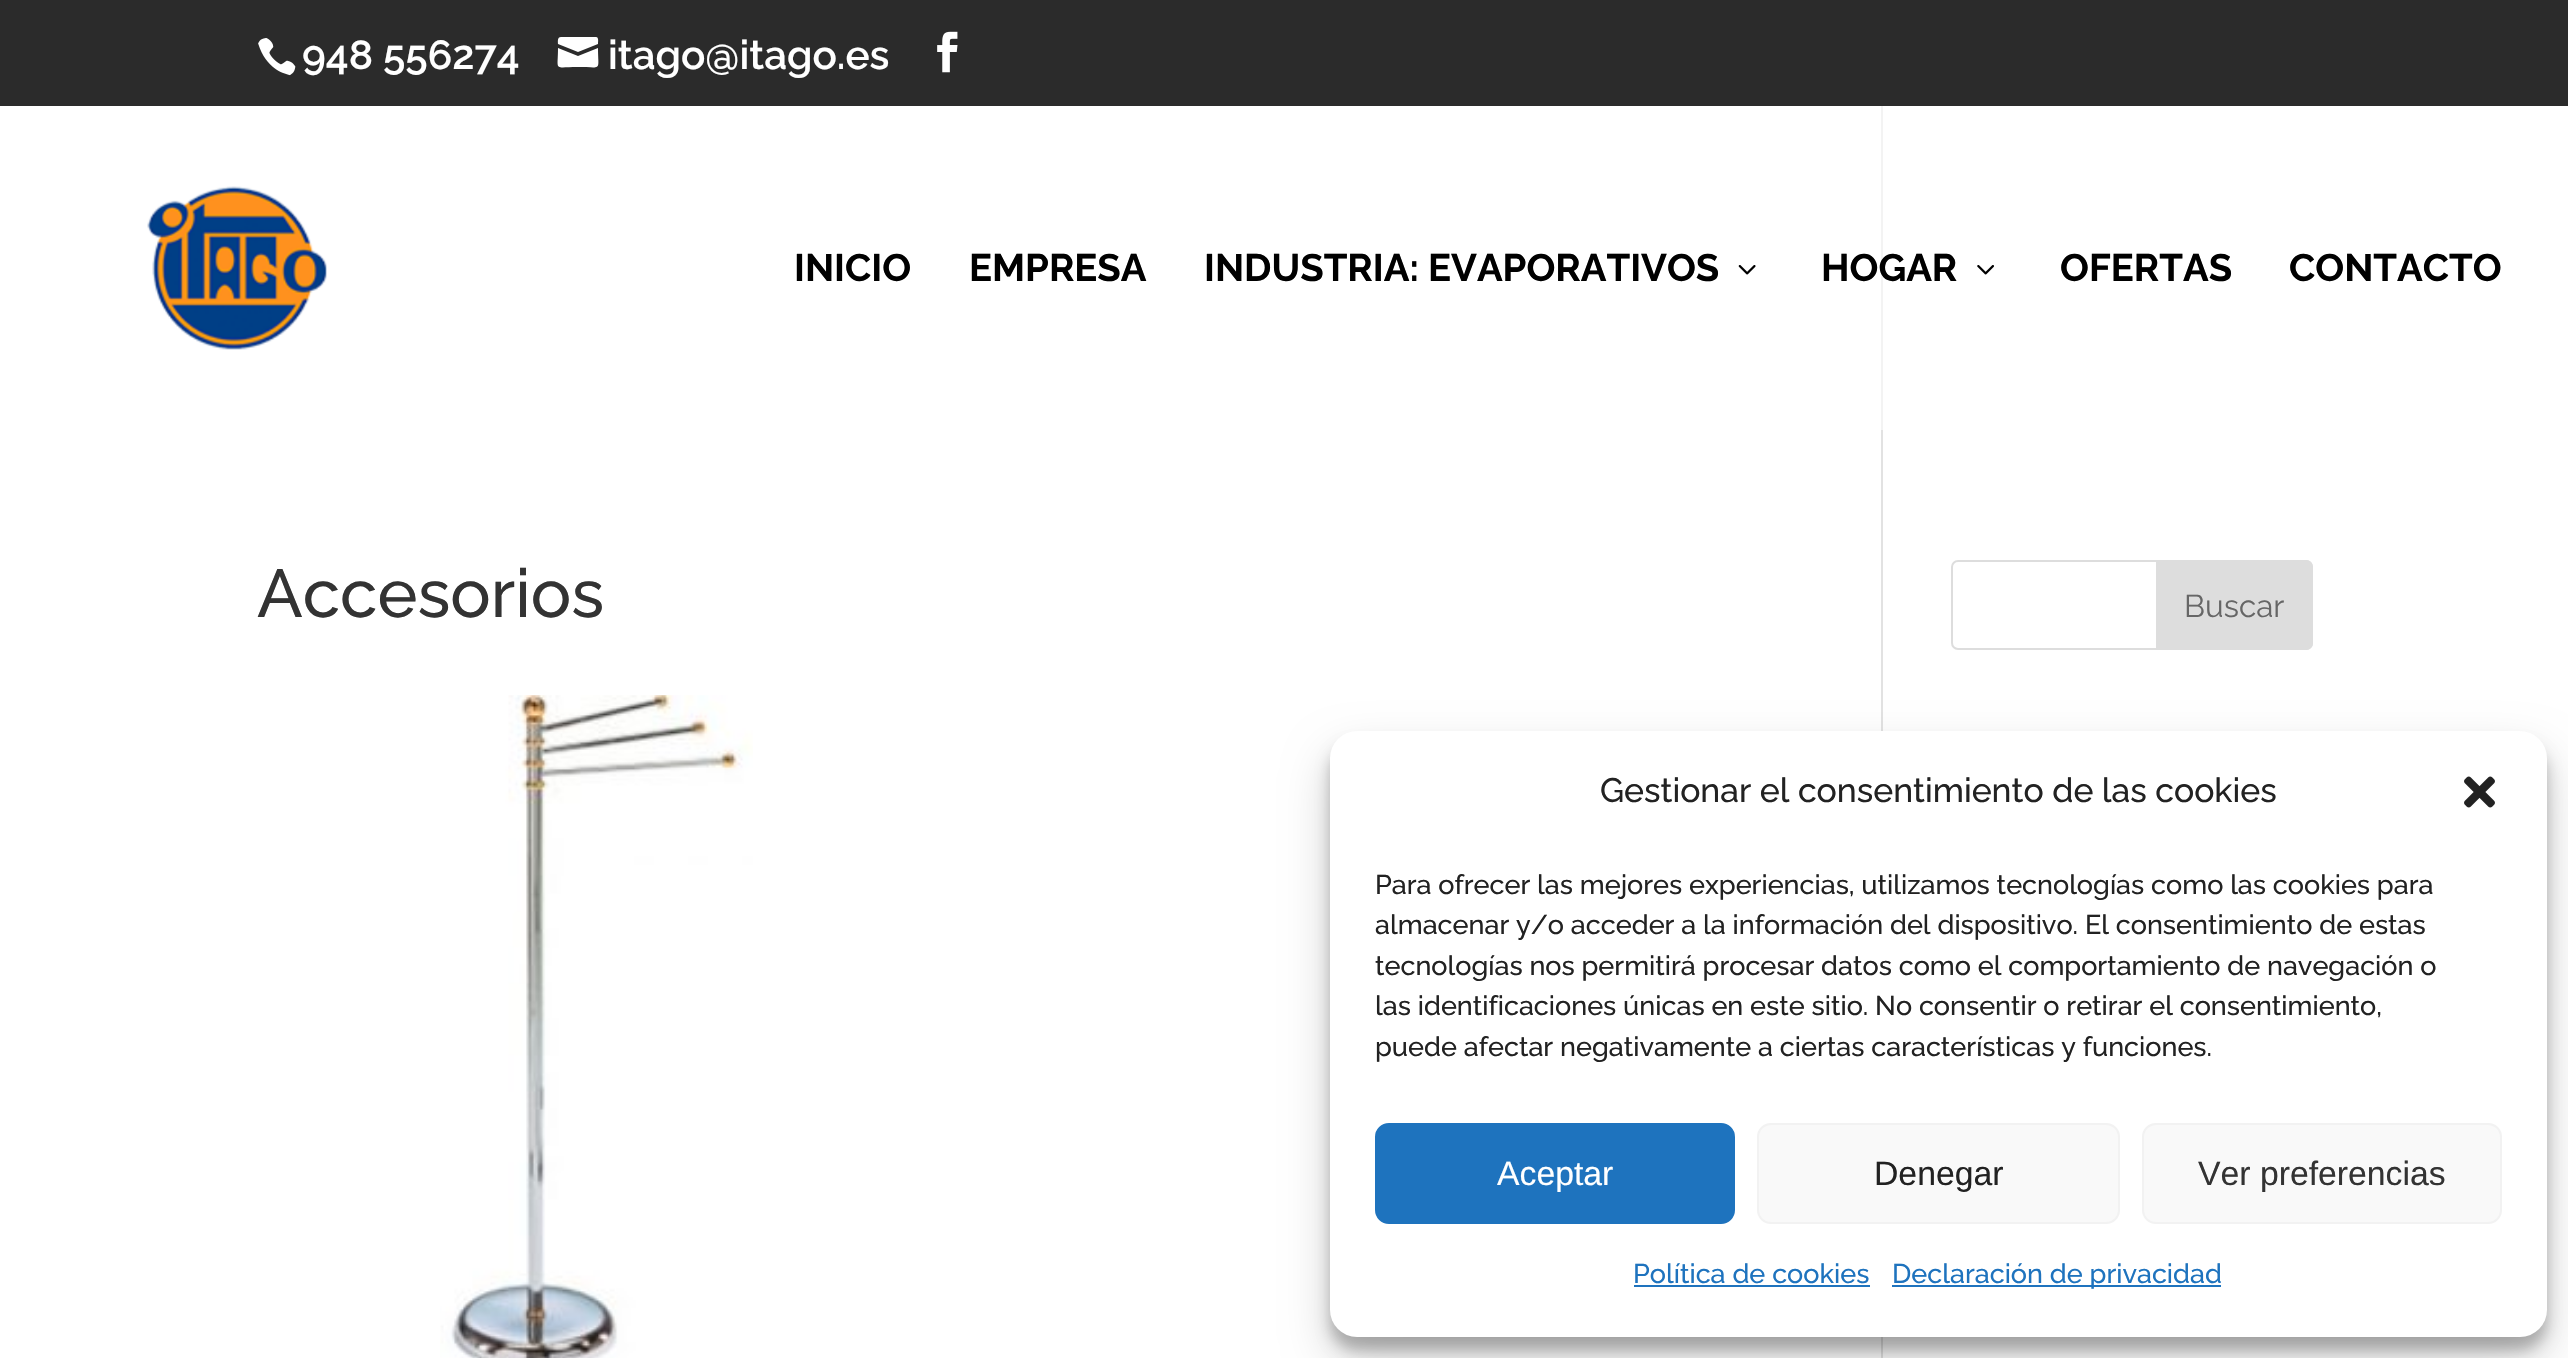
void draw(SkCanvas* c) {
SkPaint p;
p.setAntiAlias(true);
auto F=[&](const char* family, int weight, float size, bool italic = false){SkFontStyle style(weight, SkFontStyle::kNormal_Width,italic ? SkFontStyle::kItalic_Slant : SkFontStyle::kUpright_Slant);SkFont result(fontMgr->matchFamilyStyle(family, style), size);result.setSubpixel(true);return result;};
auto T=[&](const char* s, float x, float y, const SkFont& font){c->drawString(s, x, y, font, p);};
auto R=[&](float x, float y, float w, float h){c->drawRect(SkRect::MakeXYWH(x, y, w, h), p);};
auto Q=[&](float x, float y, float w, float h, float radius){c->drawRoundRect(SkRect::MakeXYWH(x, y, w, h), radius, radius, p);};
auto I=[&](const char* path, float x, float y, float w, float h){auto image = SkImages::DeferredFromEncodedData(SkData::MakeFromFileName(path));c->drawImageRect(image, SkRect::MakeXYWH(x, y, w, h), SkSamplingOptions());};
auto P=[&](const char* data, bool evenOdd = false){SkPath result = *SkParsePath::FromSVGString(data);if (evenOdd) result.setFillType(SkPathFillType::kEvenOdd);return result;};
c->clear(0xffffffff);
p.setColor(0xff2b2b2b);
R(0,0,2568,106);
I("1.png",258,38,38,38);
auto f1 = F("Raleway",600,40.5);
p.setColor(0xffffffff);
T("948 556274",302,69,f1);
T("itago@itago.es",608,69,f1);
c->drawPath(P("M596 37h-35c-4 0-3 5-3 7l20 8l20-8c0-2 1-7-2-7zm-38 11c0 24-5 19 20 19c25 0 20 5 20-19l-20 8z"),p);
I("2.png",937,31,21,42);
I("3.png",147,186,180,164);
auto f2 = F("Raleway",700,38.25);
p.setColor(0xff000000);
T("INICIO",794,281,f2);
T("EMPRESA",969,281,f2);
T("INDUSTRIA: EVAPORATIVOS",1204,281,f2);
I("4.png",1738,265,18,10);
p.setColor(0xfff3f3f3);
R(1881,106,2,324);
p.setColor(0xff000000);
T("HOGAR",1821,281,f2);
I("5.png",1977,265,17,10);
T("OFERTAS",2060,281,f2);
T("CONTACTO",2289,281,f2);
p.setColor(0xffe2e2e2);
R(1881,430,2,928);
auto f3 = F("Raleway",500,67.5);
p.setColor(0xff333333);
T("Accesorios",257,617,f3);
I("6.png",440,695,313,663);
p.setStroke(true);
p.setStrokeWidth(2);
p.setColor(0xffdddddd);
c->drawRoundRect(SkRect::MakeXYWH(1952,561,360,88),6,6,p);
p.setStroke(false);
c->drawPath(P("M2157 561h149c3.5 0 6 2.5 6 6v76c0 3.5-2.5 6-6 6h-149z"),p);
p.setStroke(true);
c->drawPath(P("M2157 561h149c3.5 0 6 2.5 6 6v76c0 3.5-2.5 6-6 6h-149z"),p);
auto f4 = F("Raleway",400,31.5);
p.setStroke(false);
p.setColor(0xff666666);
T("Buscar",2184,617,f4);
p.setColor(0x3b000000);
p.setMaskFilter(SkMaskFilter::MakeBlur(kNormal_SkBlurStyle, 7));
c->drawRoundRect(SkRect::MakeXYWH(1330,745,1217,605),27,27,p);
p.setMaskFilter(nullptr);
p.setColor(0x30000000);
p.setMaskFilter(SkMaskFilter::MakeBlur(kNormal_SkBlurStyle, 22.5));
c->drawRoundRect(SkRect::MakeXYWH(1330,754,1217,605),27,27,p);
p.setMaskFilter(nullptr);
p.setColor(0xffffffff);
Q(1330,731,1217,606,27);
auto f5 = F("Raleway",500,33.75);
p.setColor(0xff222222);
T("Gestionar el consentimiento de las cookies",1600,802,f5);
I("7.png",2464,776,31,32);
auto f6 = F("Raleway",500,27);
T("Para ofrecer las mejores experiencias, utilizamos tecnologías como las cookies para",1375,894,f6);
T("almacenar y/o acceder a la información del dispositivo. El consentimiento de estas",1375,934,f6);
T("tecnologías nos permitirá procesar datos como el comportamiento de navegación o",1375,975,f6);
T("las identificaciones únicas en este sitio. No consentir o retirar el consentimiento,",1375,1015,f6);
T("puede afectar negativamente a ciertas características y funciones.",1375,1056,f6);
p.setColor(0xff1e73be);
c->drawRoundRect(SkRect::MakeXYWH(1376,1124,358,99),13,13,p);
p.setStroke(true);
c->drawRoundRect(SkRect::MakeXYWH(1376,1124,358,99),13,13,p);
auto f7 = F("Liberation Sans",400,33.75);
p.setStroke(false);
p.setColor(0xffffffff);
T("Aceptar",1497,1185,f7);
p.setColor(0xfff9f9f9);
c->drawRoundRect(SkRect::MakeXYWH(1758,1124,361,99),13,13,p);
p.setStroke(true);
p.setColor(0xfff2f2f2);
c->drawRoundRect(SkRect::MakeXYWH(1758,1124,361,99),13,13,p);
p.setStroke(false);
p.setColor(0xff222222);
T("Denegar",1874,1185,f7);
p.setColor(0xfff9f9f9);
c->drawRoundRect(SkRect::MakeXYWH(2143,1124,358,99),13,13,p);
p.setStroke(true);
p.setColor(0xfff2f2f2);
c->drawRoundRect(SkRect::MakeXYWH(2143,1124,358,99),13,13,p);
p.setStroke(false);
p.setColor(0xff333333);
T("Ver preferencias",2198,1185,f7);
p.setColor(0xff1e73be);
T("Política de cookies",1633,1283,f6);
R(1634,1285,236,2);
R(1892,1285,329,2);
T("Declaración de privacidad",1892,1283,f6);
}
